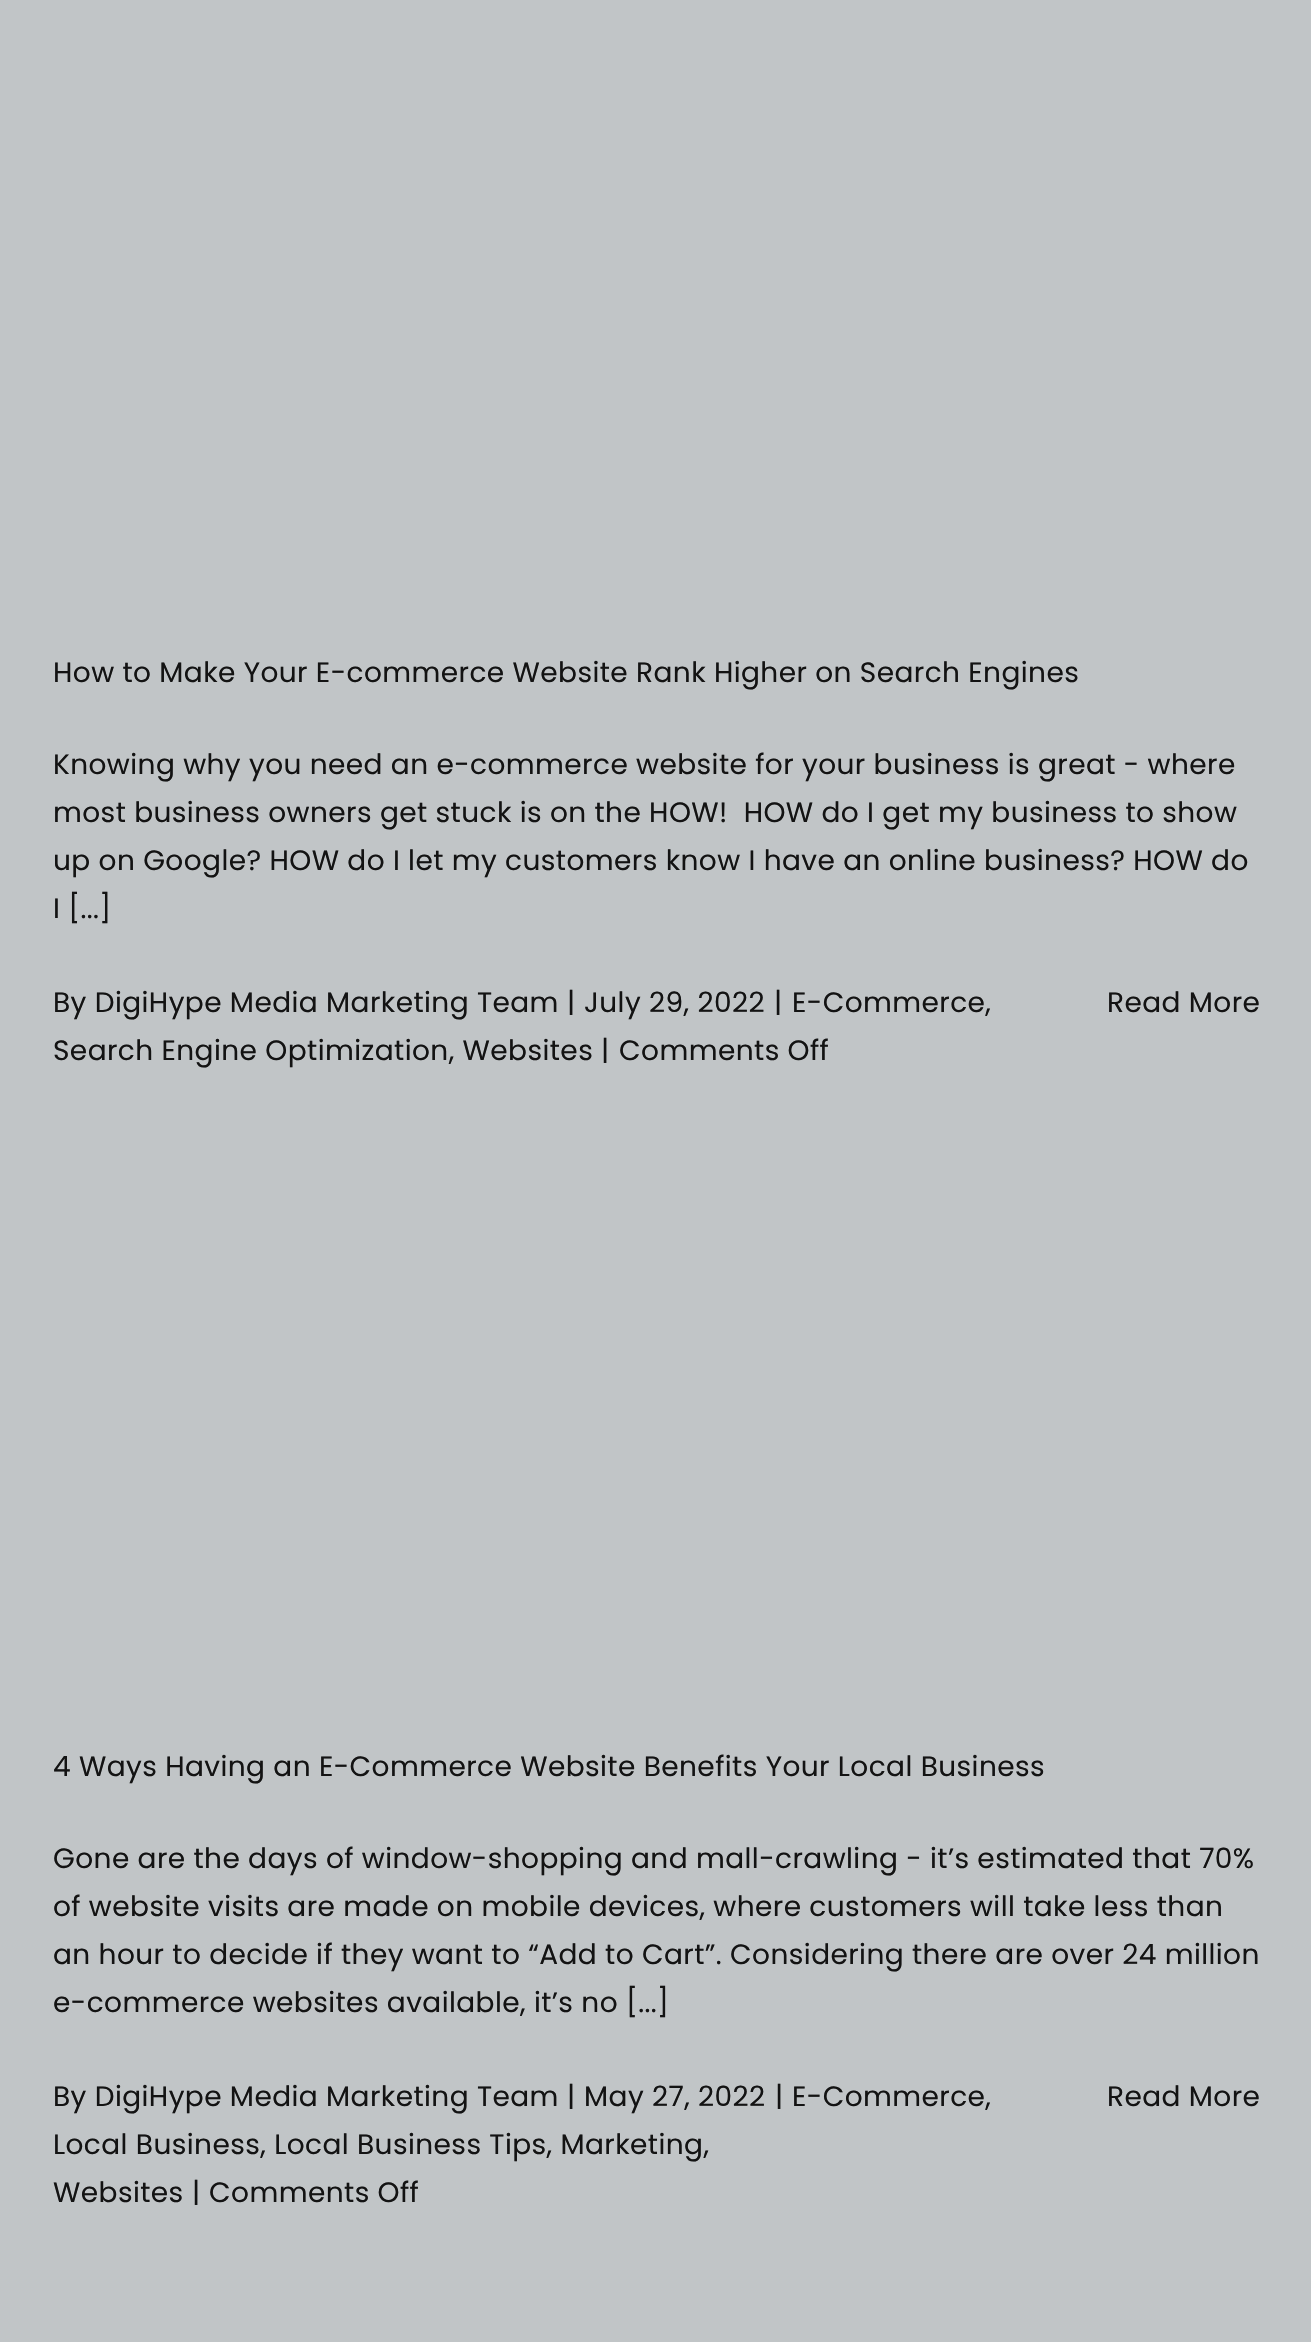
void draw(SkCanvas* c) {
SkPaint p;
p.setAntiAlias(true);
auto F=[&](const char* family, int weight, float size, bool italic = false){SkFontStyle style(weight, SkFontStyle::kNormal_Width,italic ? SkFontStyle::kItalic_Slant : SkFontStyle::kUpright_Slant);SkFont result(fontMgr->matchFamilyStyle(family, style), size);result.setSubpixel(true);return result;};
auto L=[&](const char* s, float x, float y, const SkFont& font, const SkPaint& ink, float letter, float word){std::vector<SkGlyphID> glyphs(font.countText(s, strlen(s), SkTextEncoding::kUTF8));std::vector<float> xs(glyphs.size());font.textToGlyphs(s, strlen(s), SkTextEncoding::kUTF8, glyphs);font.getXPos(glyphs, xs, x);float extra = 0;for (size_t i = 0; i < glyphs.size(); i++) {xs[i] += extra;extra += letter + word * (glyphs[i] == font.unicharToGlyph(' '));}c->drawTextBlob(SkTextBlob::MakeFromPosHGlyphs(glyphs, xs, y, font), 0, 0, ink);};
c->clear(0xffc1c5c7);
auto f1 = F("Poppins",400,28);
p.setColor(0xff131313);
L("How to Make Your E-commerce Website Rank Higher on Search Engines",53,682,f1,p,.42,0);
L("Knowing why you need an e-commerce website for your business is great - where",53,774,f1,p,.42,0);
L("most business owners get stuck is on the HOW!  HOW do I get my business to show",53,822,f1,p,.42,0);
L("up on Google? HOW do I let my customers know I have an online business? HOW do",53,870,f1,p,.42,0);
L("I [...]",53,918,f1,p,.42,0);
L("By DigiHype Media Marketing Team",53,1012,f1,p,.42,0);
L("|",567,1012,f1,p,.42,0);
L("July 29, 2022",584,1012,f1,p,.42,0);
L("|",774,1012,f1,p,.42,0);
L("E-Commerce,",792,1012,f1,p,.42,0);
L("Search Engine Optimization, Websites",53,1060,f1,p,.42,0);
L("|",601,1060,f1,p,.42,0);
L("Comments Off",619,1060,f1,p,.42,0);
L("Read More",1107,1012,f1,p,.42,0);
L("4 Ways Having an E-Commerce Website Benefits Your Local Business",53,1776,f1,p,.42,0);
L("Gone are the days of window-shopping and mall-crawling - it’s estimated that 70%",53,1868,f1,p,.42,0);
L("of website visits are made on mobile devices, where customers will take less than",53,1916,f1,p,.42,0);
L("an hour to decide if they want to “Add to Cart”. Considering there are over 24 million",53,1964,f1,p,.42,0);
L("e-commerce websites available, it’s no [...]",53,2012,f1,p,.42,0);
L("By DigiHype Media Marketing Team",53,2106,f1,p,.42,0);
L("|",567,2106,f1,p,.42,0);
L("May 27, 2022",584,2106,f1,p,.42,0);
L("|",775,2106,f1,p,.42,0);
L("E-Commerce,",792,2106,f1,p,.42,0);
L("Local Business, Local Business Tips, Marketing,",53,2154,f1,p,.42,0);
L("Websites",53,2202,f1,p,.42,0);
L("|",192,2202,f1,p,.42,0);
L("Comments Off",209,2202,f1,p,.42,0);
L("Read More",1107,2106,f1,p,.42,0);
}
